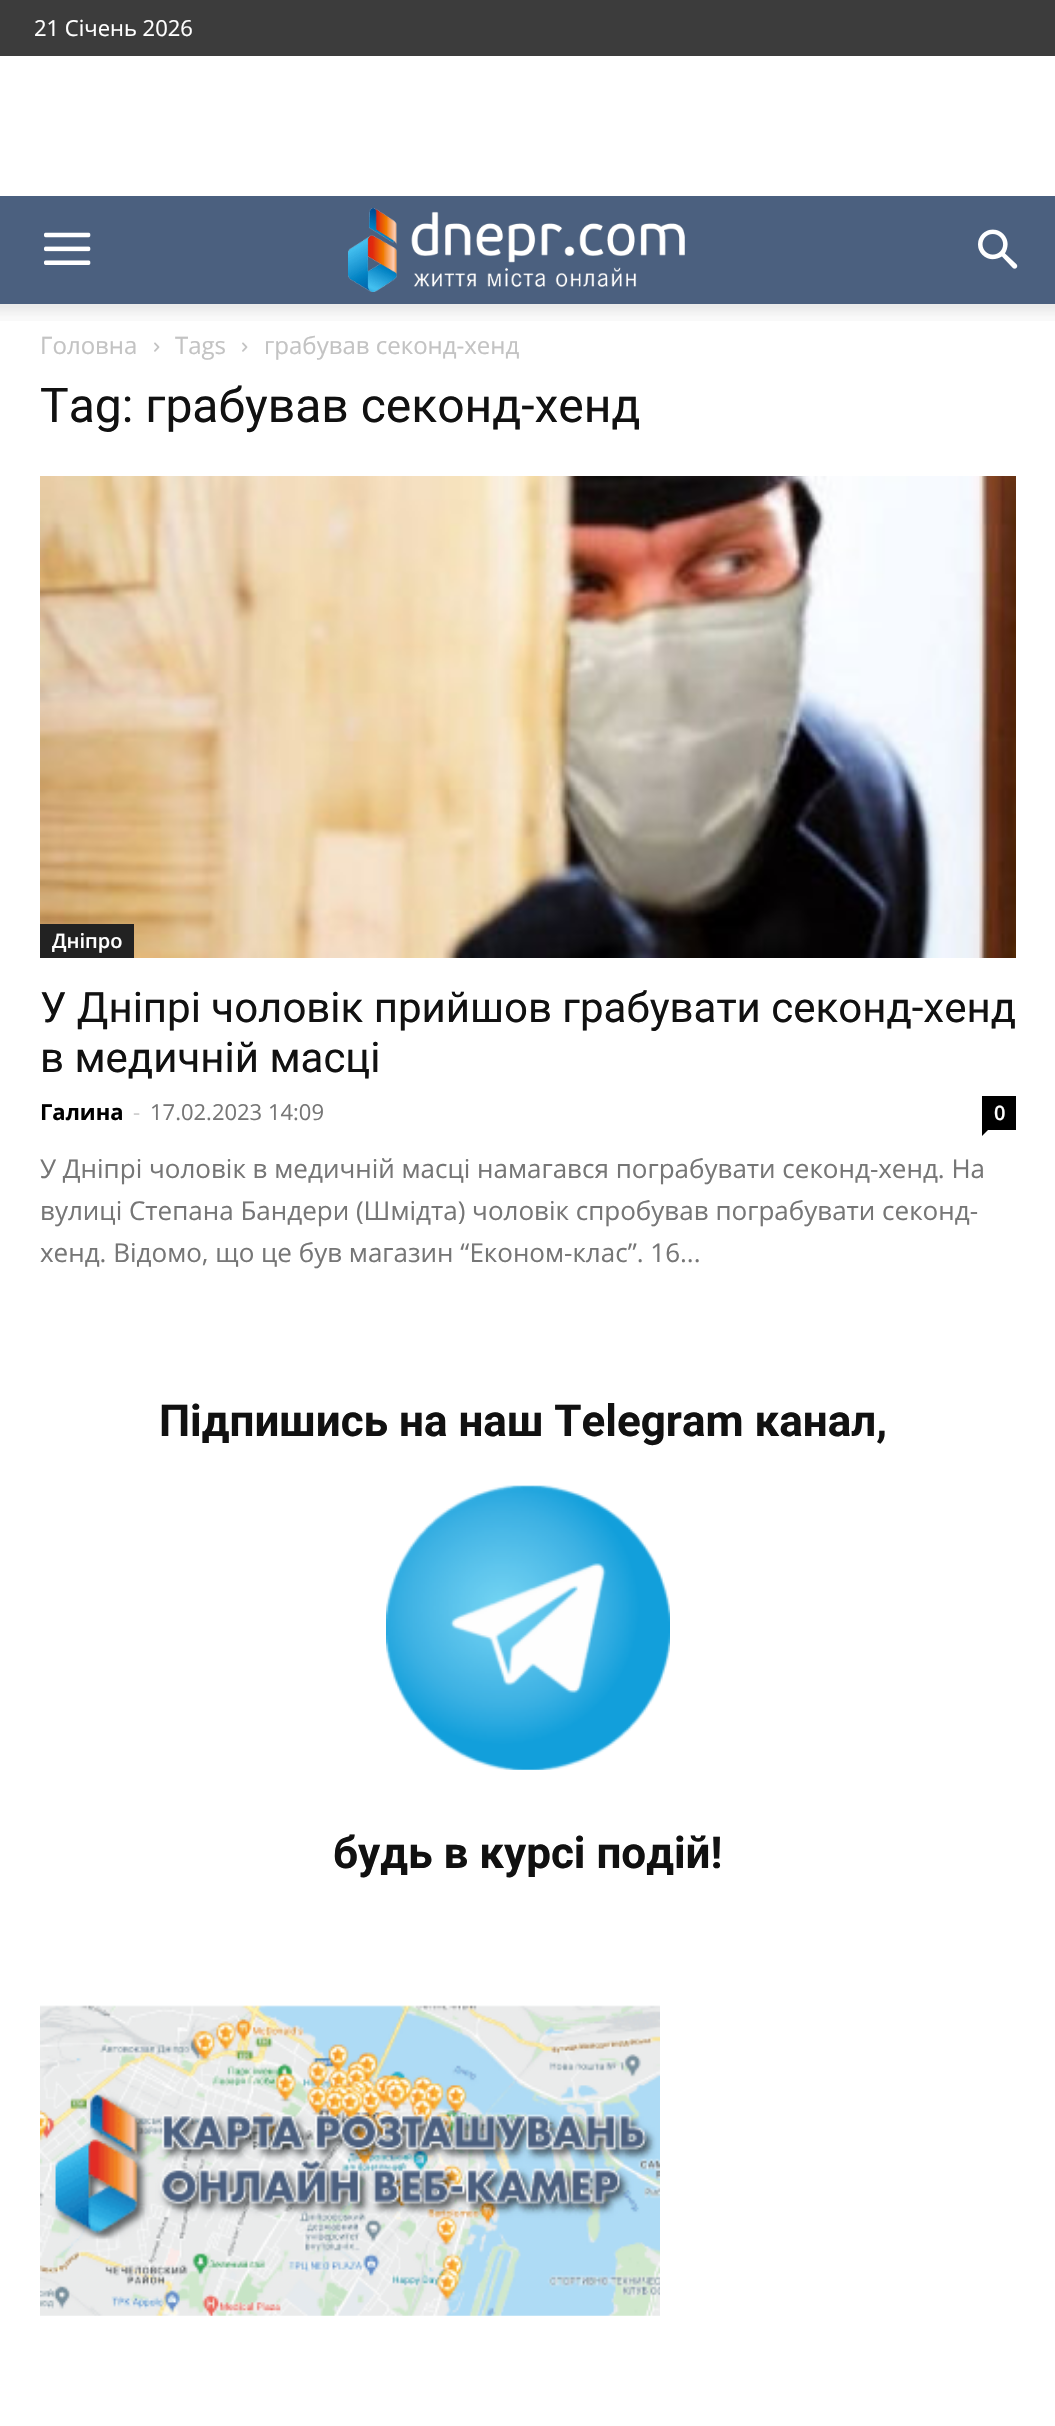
void draw(SkCanvas* c) {
SkPaint p;
p.setAntiAlias(true);
auto F=[&](const char* family, int weight, float size, bool italic = false){SkFontStyle style(weight, SkFontStyle::kNormal_Width,italic ? SkFontStyle::kItalic_Slant : SkFontStyle::kUpright_Slant);SkFont result(fontMgr->matchFamilyStyle(family, style), size);result.setSubpixel(true);return result;};
auto T=[&](const char* s, float x, float y, const SkFont& font){c->drawString(s, x, y, font, p);};
auto R=[&](float x, float y, float w, float h){c->drawRect(SkRect::MakeXYWH(x, y, w, h), p);};
auto I=[&](const char* path, float x, float y, float w, float h){auto image = SkImages::DeferredFromEncodedData(SkData::MakeFromFileName(path));c->drawImageRect(image, SkRect::MakeXYWH(x, y, w, h), SkSamplingOptions());};
auto P=[&](const char* data, bool evenOdd = false){SkPath result = *SkParsePath::FromSVGString(data);if (evenOdd) result.setFillType(SkPathFillType::kEvenOdd);return result;};
c->clear(0xffffffff);
p.setColor(0xff3c3c3c);
R(0,0,1055,56);
auto f1 = F("Open Sans",400,22);
p.setColor(0xffffffff);
T("21 Січень 2026",34,36,f1);
p.setColor(0xff4b607f);
R(0,196,1055,108);
I("1.png",44,232,47,33);
I("2.png",348,208,337,84);
I("3.png",978,229,40,40);
I("4.png",0,304,1055,17);
auto f2 = F("Open Sans",400,24);
p.setColor(0xffc3c3c3);
T("Головна",40,354,f2);
I("5.png",154,342,6,10);
T("Tags",175,354,f2);
I("5.png",242,342,6,10);
T("грабував секонд-хенд",264,354,f2);
auto f3 = F("Roboto",400,48);
p.setColor(0xff111111);
T("Tag: грабував секонд-хенд",40,422,f3);
I("6.png",40,476,976,482);
p.setColor(0xff222222);
R(40,924,94,34);
auto f4 = F("Open Sans",600,20);
p.setColor(0xffffffff);
T("Дніпро",52,948,f4);
auto f5 = F("Roboto",400,42);
p.setColor(0xff111111);
T("У Дніпрі чоловік прийшов грабувати секонд-хенд",40,1022,f5);
T("в медичній масці",40,1072,f5);
auto f6 = F("Open Sans",700,22);
p.setColor(0xff000000);
T("Галина",40,1120,f6);
p.setColor(0xffcccccc);
T("-",133,1120,f1);
p.setColor(0xff767676);
T("17.02.2023 14:09",150,1120,f1);
p.setColor(0xff000000);
R(982,1096,34,34);
p.setColor(0xffffffff);
T("0",994,1120,f4);
p.setColor(0xff000000);
c->drawPath(P("M982 1130h6l-6 6z"),p);
auto f7 = F("Open Sans",400,26);
p.setColor(0xff767676);
T("У Дніпрі чоловік в медичній масці намагався пограбувати секонд-хенд. На",40,1178,f7);
T("вулиці Степана Бандери (Шмідта) чоловік спробував пограбувати секонд-",40,1220,f7);
T("хенд. Відомо, що це був магазин “Економ-клас”. 16...",40,1262,f7);
auto f8 = F("Roboto",700,44);
p.setColor(0xff111111);
T("Підпишись на наш Telegram канал,",159,1436,f8);
I("7.png",386,1485,284,285);
T("будь в курсі подій!",333,1868,f8);
I("8.png",40,2005,620,311);
}
